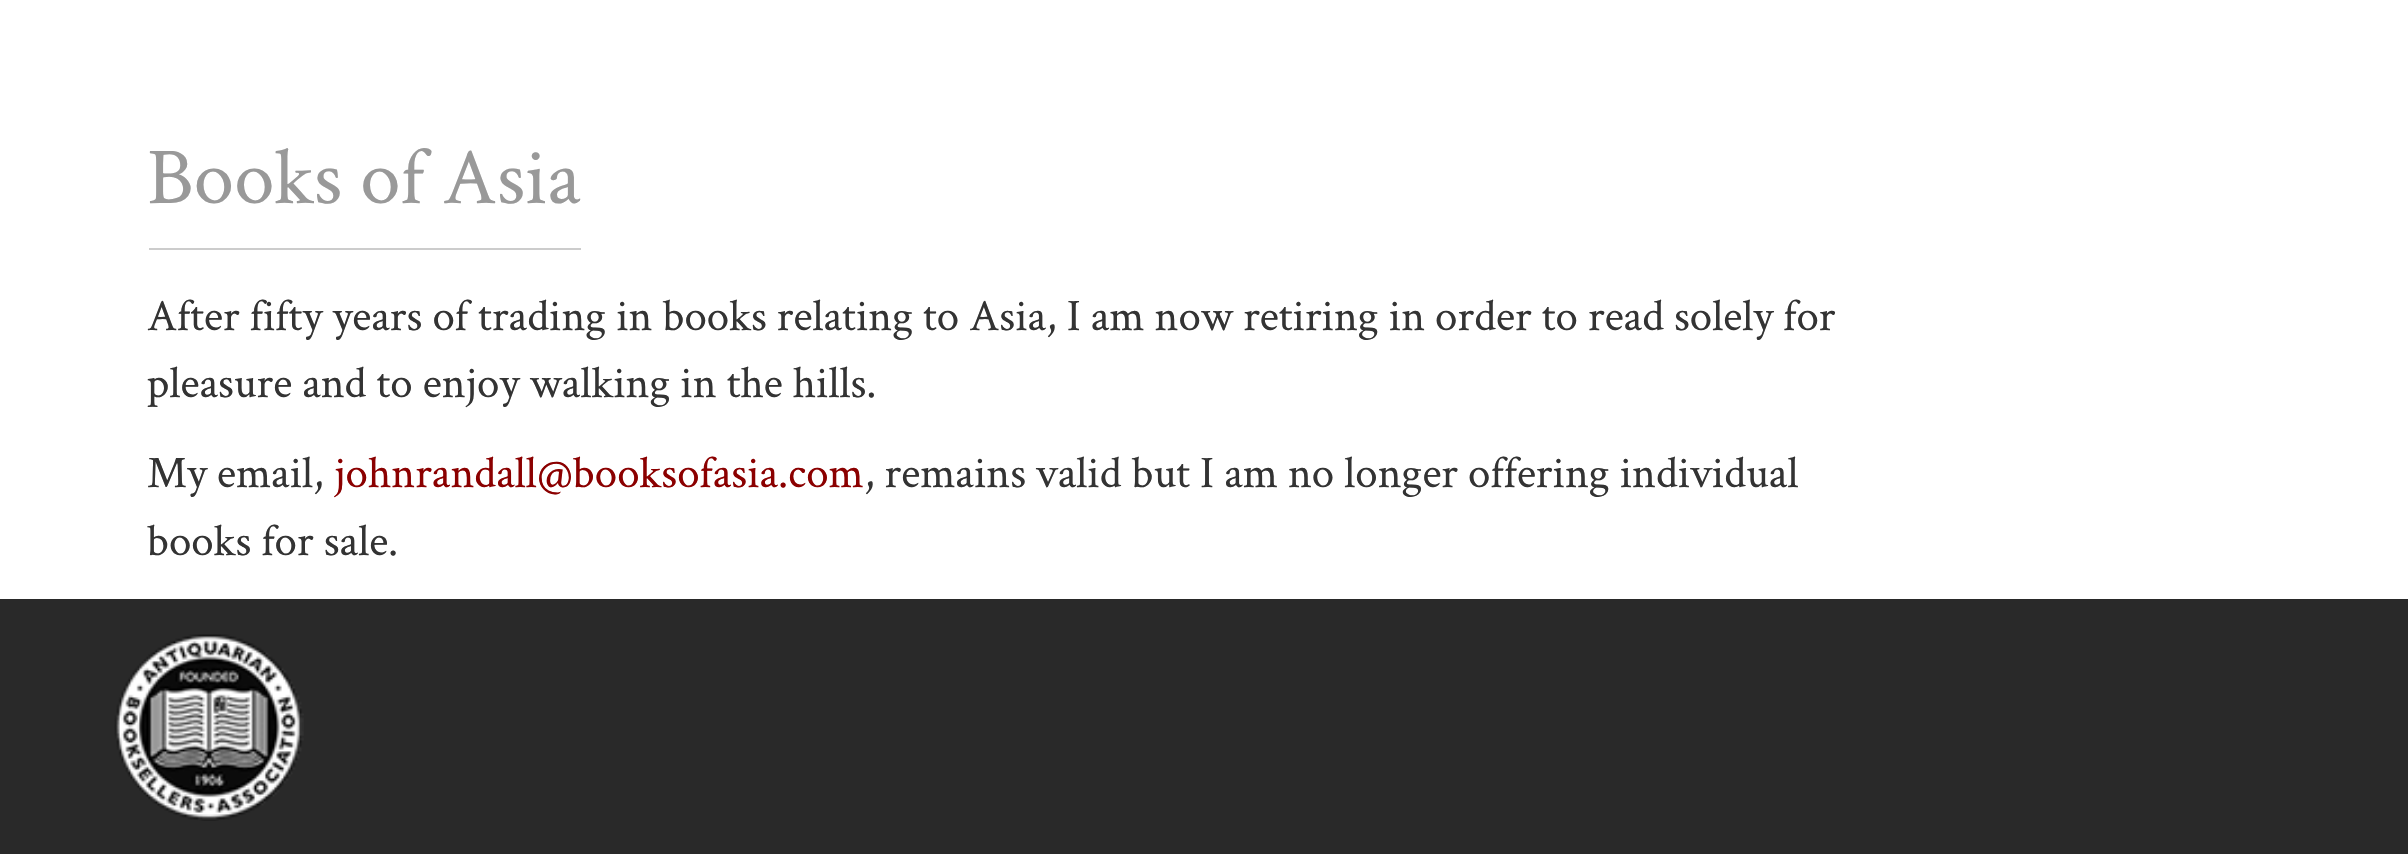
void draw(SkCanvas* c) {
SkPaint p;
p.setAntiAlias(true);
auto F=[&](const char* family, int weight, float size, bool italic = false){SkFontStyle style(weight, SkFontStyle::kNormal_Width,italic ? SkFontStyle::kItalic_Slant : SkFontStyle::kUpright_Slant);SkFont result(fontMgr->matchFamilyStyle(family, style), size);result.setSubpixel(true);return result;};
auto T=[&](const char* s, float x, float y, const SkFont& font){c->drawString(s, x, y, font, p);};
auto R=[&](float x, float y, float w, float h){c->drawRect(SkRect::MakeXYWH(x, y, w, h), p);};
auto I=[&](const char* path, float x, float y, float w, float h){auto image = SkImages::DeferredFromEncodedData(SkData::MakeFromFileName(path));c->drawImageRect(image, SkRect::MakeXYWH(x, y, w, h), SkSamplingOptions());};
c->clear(0xffffffff);
p.setColor(0xff292929);
R(0,599,2408,255);
p.setColor(0xffcccccc);
R(149,248,432,2);
auto f1 = F("Crimson Text",400,81);
p.setColor(0xff999999);
T("Books of Asia",147,203,f1);
auto f2 = F("Crimson Text",400,45);
p.setColor(0xff333333);
T("After fifty years of trading in books relating to Asia, I am now retiring in order to read solely for",147,330,f2);
T("pleasure and to enjoy walking in the hills.",147,397,f2);
T("My email,",147,487,f2);
p.setColor(0xff8b0000);
T("johnrandall@booksofasia.com",334,487,f2);
p.setColor(0xff333333);
T(", remains valid but I am no longer offering individual",864,487,f2);
T("books for sale.",147,555,f2);
I("1.png",114,634,190,187);
}
